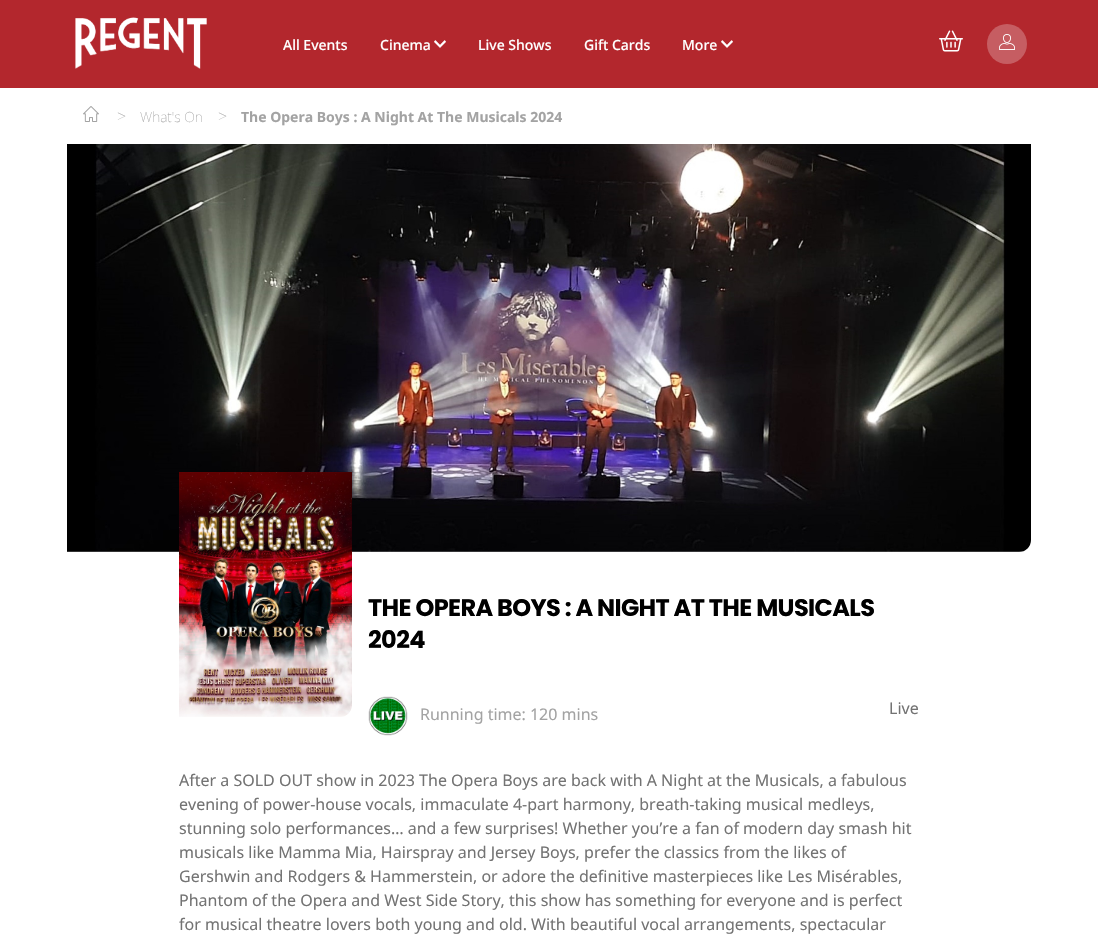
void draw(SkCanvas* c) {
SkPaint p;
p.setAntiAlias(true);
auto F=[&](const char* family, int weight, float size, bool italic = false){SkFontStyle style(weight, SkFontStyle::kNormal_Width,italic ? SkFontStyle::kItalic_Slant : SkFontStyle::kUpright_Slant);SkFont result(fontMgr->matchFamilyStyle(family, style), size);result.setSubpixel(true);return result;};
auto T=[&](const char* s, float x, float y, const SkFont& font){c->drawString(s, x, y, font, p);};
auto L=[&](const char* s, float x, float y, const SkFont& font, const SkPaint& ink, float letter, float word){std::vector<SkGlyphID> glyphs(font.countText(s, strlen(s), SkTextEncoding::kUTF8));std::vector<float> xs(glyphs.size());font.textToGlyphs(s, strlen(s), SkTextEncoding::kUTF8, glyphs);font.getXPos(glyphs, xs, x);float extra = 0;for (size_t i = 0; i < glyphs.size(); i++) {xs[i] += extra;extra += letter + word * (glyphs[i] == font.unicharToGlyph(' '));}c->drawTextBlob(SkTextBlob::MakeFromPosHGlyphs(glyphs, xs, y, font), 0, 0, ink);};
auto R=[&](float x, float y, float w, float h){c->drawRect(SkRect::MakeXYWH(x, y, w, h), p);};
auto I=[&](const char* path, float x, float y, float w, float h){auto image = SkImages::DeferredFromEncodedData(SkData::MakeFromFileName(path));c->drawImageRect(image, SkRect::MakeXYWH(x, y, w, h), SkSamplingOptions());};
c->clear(0xffffffff);
p.setColor(0xffb3272d);
R(0,0,1098,88);
I("1.png",75,17,132,52);
auto f1 = F("Noto Sans",500,14);
p.setColor(0xffffffff);
T("All Events",283,50,f1);
T("Cinema",380,50,f1);
auto f2 = F("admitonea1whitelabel",400,12);
T("<",434,50,f2);
T("Live Shows",478,50,f1);
T("Gift Cards",584,50,f1);
T("More",682,50,f1);
T("<",721,50,f2);
I("2.png",939,30,24,22);
p.setColor(0xffc65d62);
c->drawCircle(1007,44,20,p);
I("3.png",999,34,16,16);
I("4.png",83,106,16,16);
auto f3 = F("Noto Sans",100,16);
p.setColor(0xffa3a3a3);
T(">",117,122,f3);
auto f4 = F("Noto Sans",100,14);
T("What's On",140,122,f4);
T(">",218,122,f3);
auto f5 = F("Noto Sans",700,14);
T("The Opera Boys : A Night At The Musicals 2024",241,122,f5);
I("5.png",67,144,964,408);
I("6.png",179,472,173,245);
auto f6 = F("Poppins",700,24);
p.setColor(0xff000000);
L("THE OPERA BOYS : A NIGHT AT THE MUSICALS",368,616,f6,p,-.6,0);
L("2024",368,648,f6,p,-.6,0);
I("7.png",368,696,40,40);
auto f7 = F("Noto Sans",400,16);
p.setColor(0xffa3a3a3);
T("Running time: 120 mins",420,720,f7);
p.setColor(0xff737373);
T("Live",889,714,f7);
T("After a SOLD OUT show in 2023 The Opera Boys are back with A Night at the Musicals, a fabulous",179,786,f7);
T("evening of power-house vocals, immaculate 4-part harmony, breath-taking musical medleys,",179,810,f7);
T("stunning solo performances… and a few surprises! Whether you’re a fan of modern day smash hit",179,834,f7);
T("musicals like Mamma Mia, Hairspray and Jersey Boys, prefer the classics from the likes of",179,858,f7);
T("Gershwin and Rodgers & Hammerstein, or adore the definitive masterpieces like Les Misérables,",179,882,f7);
T("Phantom of the Opera and West Side Story, this show has something for everyone and is perfect",179,906,f7);
T("for musical theatre lovers both young and old. With beautiful vocal arrangements, spectacular",179,930,f7);
}
